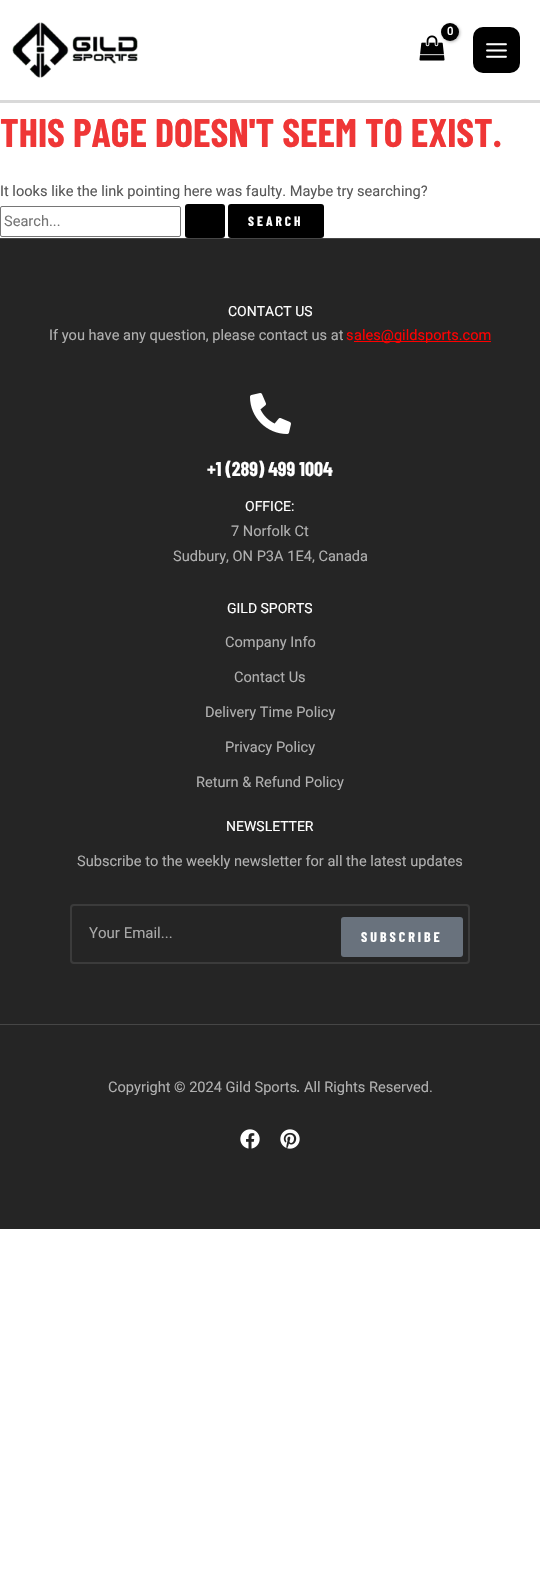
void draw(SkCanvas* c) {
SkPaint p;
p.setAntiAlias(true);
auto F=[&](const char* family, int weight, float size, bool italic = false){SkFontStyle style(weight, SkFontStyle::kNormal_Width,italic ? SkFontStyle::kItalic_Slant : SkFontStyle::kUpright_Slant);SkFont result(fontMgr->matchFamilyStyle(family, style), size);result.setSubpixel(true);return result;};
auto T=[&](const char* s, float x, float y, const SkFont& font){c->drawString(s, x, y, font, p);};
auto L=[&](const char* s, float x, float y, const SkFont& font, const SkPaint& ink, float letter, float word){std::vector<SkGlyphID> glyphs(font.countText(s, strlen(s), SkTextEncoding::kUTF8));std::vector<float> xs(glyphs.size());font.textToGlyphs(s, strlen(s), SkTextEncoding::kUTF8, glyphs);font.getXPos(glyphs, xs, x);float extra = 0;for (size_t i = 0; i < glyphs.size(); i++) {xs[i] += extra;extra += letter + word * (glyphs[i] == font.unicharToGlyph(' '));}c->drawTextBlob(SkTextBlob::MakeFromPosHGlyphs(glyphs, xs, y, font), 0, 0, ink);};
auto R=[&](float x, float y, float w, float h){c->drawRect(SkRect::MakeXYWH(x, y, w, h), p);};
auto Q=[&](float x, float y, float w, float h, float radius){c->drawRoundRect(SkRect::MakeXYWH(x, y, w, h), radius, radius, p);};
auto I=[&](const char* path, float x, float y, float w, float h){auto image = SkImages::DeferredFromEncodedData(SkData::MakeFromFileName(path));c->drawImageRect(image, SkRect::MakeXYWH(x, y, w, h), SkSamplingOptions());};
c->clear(0xffffffff);
p.setColor(0xffd9d9d9);
R(0,100,540,3);
I("1.png",12,22,126,56);
I("2.png",419,35,26,26);
p.setColor(0x4d000000);
p.setMaskFilter(SkMaskFilter::MakeBlur(kNormal_SkBlurStyle, 1.5));
c->drawRoundRect(SkRect::MakeXYWH(442,24,18,18),9,9,p);
p.setMaskFilter(nullptr);
p.setColor(0xff000000);
c->drawCircle(450,32,9,p);
auto f1 = F("Roboto",700,11);
p.setColor(0xffffffff);
T("0",447,35,f1);
p.setColor(0xff000000);
Q(473,27,47,46,10);
I("3.png",486,43,21,15);
auto f2 = F("Barlow Condensed",700,40);
p.setColor(0xffef3636);
T("THIS PAGE DOESN'T SEEM TO EXIST.",0,147,f2);
auto f3 = F("Roboto",400,14.6);
p.setColor(0xff585858);
T("It looks like the link pointing here was faulty. Maybe try searching?",0,196,f3);
p.setStroke(true);
p.setStrokeWidth(1);
p.setColor(0xff767676);
c->drawRoundRect(SkRect::MakeXYWH(.5,206.5,180,30),1.5,1.5,p);
p.setStroke(false);
p.setColor(0xff757575);
T("Search...",4,226,f3);
p.setColor(0xff000000);
Q(185,204,40,34,3);
Q(228,204,96,34,3);
auto f4 = F("Barlow Condensed",700,13.5);
p.setColor(0xffffffff);
L("SEARCH",248,226,f4,p,3,0);
p.setColor(0xff252525);
R(0,239,540,785);
p.setColor(0xff464646);
R(0,238,540,1);
auto f5 = F("Roboto",400,14);
p.setColor(0xffffffff);
T("CONTACT US",228,316,f5);
p.setColor(0xffb0b0b0);
T("If you have any question, please contact us at",49,340,f3);
p.setColor(0xffff0000);
T("s",346,340,f3);
R(354,341,137,1);
T("ales@gildsports.com",354,340,f3);
I("4.png",250,393,41,41);
auto f6 = F("Barlow Condensed",700,20);
p.setColor(0xffffffff);
T("+1 (289) 499 1004",207,476,f6);
T("OFFICE:",245,511,f5);
p.setColor(0xffb0b0b0);
T("7 Norfolk Ct",231,536,f3);
T("Sudbury, ON P3A 1E4, Canada",173,561,f3);
p.setColor(0xffffffff);
T("GILD SPORTS",227,613,f5);
p.setColor(0xffb0b0b0);
T("Company Info",225,647,f3);
T("Contact Us",234,682,f3);
T("Delivery Time Policy",205,717,f3);
T("Privacy Policy",225,752,f3);
T("Return & Refund Policy",196,787,f3);
p.setColor(0xffffffff);
T("NEWSLETTER",226,831,f5);
p.setColor(0xffb0b0b0);
T("Subscribe to the weekly newsletter for all the latest updates",77,866,f3);
p.setStroke(true);
p.setStrokeWidth(2);
p.setColor(0xff3b3b3b);
c->drawRoundRect(SkRect::MakeXYWH(71,905,398,58),3,3,p);
auto f7 = F("Roboto",400,15);
p.setStroke(false);
p.setColor(0xffa8a8a8);
T("Your Email...",89,938,f7);
p.setColor(0xff69727d);
Q(341,917,122,40,3);
auto f8 = F("Barlow Condensed",700,14);
p.setColor(0xffffffff);
L("SUBSCRIBE",361,942,f8,p,3,0);
p.setColor(0xff252525);
R(0,1025,540,204);
p.setColor(0xff464646);
R(0,1024,540,1);
p.setColor(0xffb0b0b0);
T("Copyright © 2024 Gild Sports",108,1092,f3);
auto f9 = F("Roboto",700,14.6);
T(".",296,1092,f9);
T("All Rights Reserved.",304,1092,f3);
I("5.png",240,1129,20,20);
I("6.png",280,1129,20,20);
}
